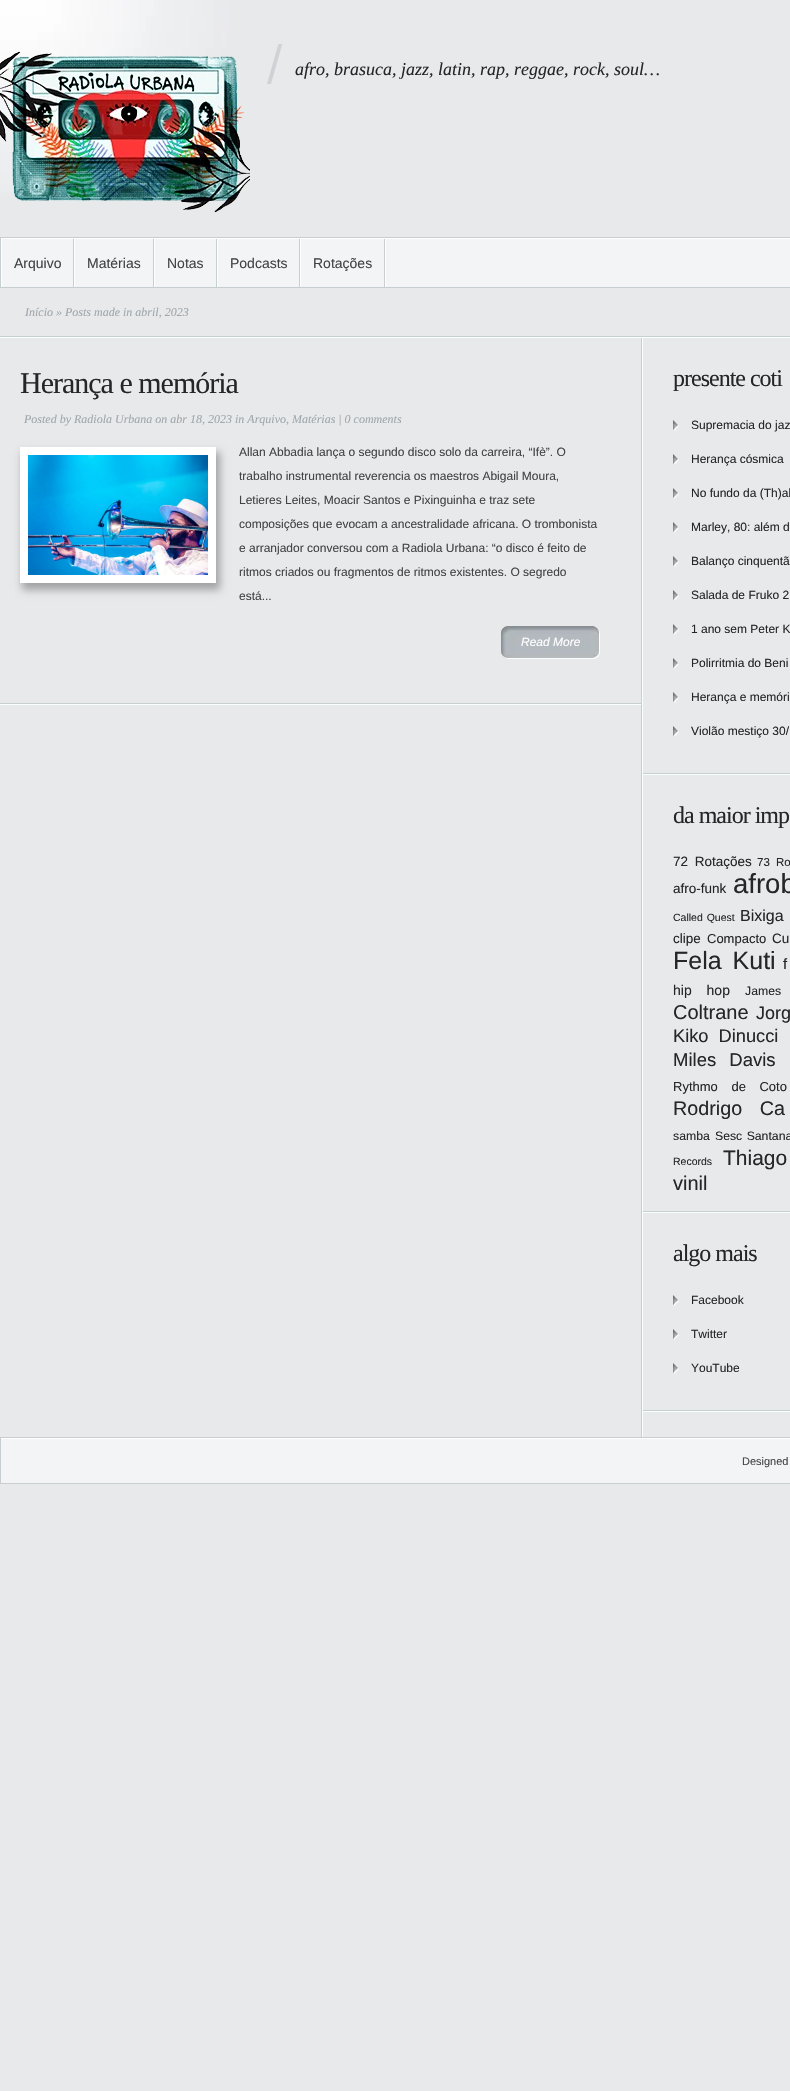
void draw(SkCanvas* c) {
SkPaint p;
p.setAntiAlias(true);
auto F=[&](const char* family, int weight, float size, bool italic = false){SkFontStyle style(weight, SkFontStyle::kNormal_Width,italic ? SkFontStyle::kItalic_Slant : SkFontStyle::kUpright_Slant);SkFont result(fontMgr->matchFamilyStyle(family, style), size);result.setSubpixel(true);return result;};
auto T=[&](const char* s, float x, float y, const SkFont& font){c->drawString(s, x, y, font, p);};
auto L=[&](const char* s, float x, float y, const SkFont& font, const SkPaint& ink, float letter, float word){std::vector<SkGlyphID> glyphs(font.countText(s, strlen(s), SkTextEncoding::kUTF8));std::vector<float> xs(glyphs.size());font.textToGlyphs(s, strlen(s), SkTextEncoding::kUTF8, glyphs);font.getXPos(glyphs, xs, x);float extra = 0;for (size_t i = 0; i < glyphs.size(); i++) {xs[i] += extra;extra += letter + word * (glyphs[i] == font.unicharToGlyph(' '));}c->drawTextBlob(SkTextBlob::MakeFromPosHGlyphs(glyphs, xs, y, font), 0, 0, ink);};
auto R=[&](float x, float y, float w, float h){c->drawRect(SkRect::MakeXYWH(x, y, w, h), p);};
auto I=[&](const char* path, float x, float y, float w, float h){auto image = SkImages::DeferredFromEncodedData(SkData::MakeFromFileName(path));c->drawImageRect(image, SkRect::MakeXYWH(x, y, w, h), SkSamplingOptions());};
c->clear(0xffe7e9eb);
I("1.png",0,0,228,198);
I("2.png",0,51,250,161);
I("3.png",267,44,16,40);
auto f1 = F("Liberation Serif",400,18,true);
p.setColor(0xff262626);
T("afro, brasuca, jazz, latin, rap, reggae, rock, soul…",295,75,f1);
p.setColor(0xfff3f4f5);
R(2,239,788,48);
p.setColor(0xffffffff);
R(0,238,790,1);
p.setStroke(true);
p.setStrokeWidth(1);
p.setColor(0xffc7ced1);
c->drawRect(SkRect::MakeXYWH(.5,237.5,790,50),p);
p.setStroke(false);
R(73,239,1,48);
p.setColor(0xffffffff);
R(1,239,1,48);
auto f2 = F("Liberation Sans",400,14);
p.setColor(0xff434343);
T("Arquivo",14,268,f2);
p.setColor(0xffc7ced1);
R(153,239,1,48);
p.setColor(0xffffffff);
R(74,239,1,48);
p.setColor(0xff434343);
T("Matérias",87,268,f2);
p.setColor(0xffc7ced1);
R(216,239,1,48);
p.setColor(0xffffffff);
R(154,239,1,48);
p.setColor(0xff434343);
T("Notas",167,268,f2);
p.setColor(0xffc7ced1);
R(299,239,1,48);
p.setColor(0xffffffff);
R(217,239,1,48);
p.setColor(0xff434343);
T("Podcasts",230,268,f2);
I("4.png",384,239,2,48);
p.setColor(0xffffffff);
R(300,239,1,48);
p.setColor(0xff434343);
T("Rotações",313,268,f2);
I("5.png",0,336,790,2);
auto f3 = F("Liberation Serif",400,12,true);
p.setColor(0xffa0a7ac);
T("Início » Posts made in abril, 2023",25,316,f3);
I("6.png",641,338,2,1099);
I("7.png",0,703,641,2);
auto f4 = F("Liberation Serif",400,30);
p.setColor(0xff262626);
L("Herança e memória",20,393,f4,p,-1,0);
p.setColor(0xffa0a7ac);
T("Posted by Radiola Urbana on abr 18, 2023 in Arquivo, Matérias | 0 comments",24,423,f3);
p.setColor(0x4d000000);
p.setMaskFilter(SkMaskFilter::MakeBlur(kNormal_SkBlurStyle, 4));
c->drawRect(SkRect::MakeXYWH(22,452,198,138),p);
p.setMaskFilter(nullptr);
p.setStroke(true);
p.setStrokeWidth(8);
p.setColor(0xffffffff);
c->drawRect(SkRect::MakeXYWH(24,451,188,128),p);
I("8.png",28,455,180,120);
auto f5 = F("Liberation Sans",400,12);
p.setStroke(false);
p.setColor(0xff434343);
T("Allan Abbadia lança o segundo disco solo da carreira, “Ifè”. O",239,456,f5);
T("trabalho instrumental reverencia os maestros Abigail Moura,",239,480,f5);
T("Letieres Leites, Moacir Santos e Pixinguinha e traz sete",239,504,f5);
T("composições que evocam a ancestralidade africana. O trombonista",239,528,f5);
T("e arranjador conversou com a Radiola Urbana: “o disco é feito de",239,552,f5);
T("ritmos criados ou fragmentos de ritmos existentes. O segredo",239,576,f5);
T("está...",239,600,f5);
I("9.png",591,626,9,33);
I("10.png",501,626,90,33);
auto f6 = F("Liberation Sans",400,12,true);
p.setColor(0xffffffff);
T("Read More",521,646,f6);
I("11.png",643,773,147,2);
auto f7 = F("Liberation Serif",400,24);
p.setColor(0xff262626);
L("presente coti",673,386,f7,p,-1,0);
I("12.png",673,420,6,11);
T("Supremacia do jaz",691,429,f5);
I("12.png",673,454,6,11);
T("Herança cósmica",691,463,f5);
I("12.png",673,488,6,11);
T("No fundo da (Th)al",691,497,f5);
I("12.png",673,522,6,11);
T("Marley, 80: além d",691,531,f5);
I("12.png",673,556,6,11);
T("Balanço cinquentã",691,565,f5);
I("12.png",673,590,6,11);
T("Salada de Fruko 2",691,599,f5);
I("12.png",673,624,6,11);
T("1 ano sem Peter K",691,633,f5);
I("12.png",673,658,6,11);
T("Polirritmia do Beni",691,667,f5);
I("12.png",673,692,6,11);
T("Herança e memóri",691,701,f5);
I("12.png",673,726,6,11);
T("Violão mestiço 30/",691,735,f5);
I("11.png",643,1211,147,2);
L("da maior imp",673,823,f7,p,-1,0);
auto f8 = F("Liberation Sans",400,13.5);
L("72 Rotações",673,866,f8,p,0,3);
auto f9 = F("Liberation Sans",400,11.5);
L("73 Ro",757,866,f9,p,0,3);
T("afro-funk",673,893,f8);
auto f10 = F("Liberation Sans",400,27.5);
T("afrob",733,893,f10);
auto f11 = F("Liberation Sans",400,10.5);
L("Called Quest",673,921,f11,p,0,1);
auto f12 = F("Liberation Sans",400,16);
L("Bixiga",740,921,f12,p,0,1);
T("clipe",673,943,f8);
auto f13 = F("Liberation Sans",400,13);
T("Compacto",707,943,f13);
T("Cu",772,943,f8);
auto f14 = F("Liberation Sans",400,25);
L("Fela Kuti",673,969,f14,p,0,4);
auto f15 = F("Liberation Sans",400,15);
T("f",783,969,f15);
L("hip hop",673,995,f2,p,0,11);
auto f16 = F("Liberation Sans",400,12.25);
L("James",745,995,f16,p,0,11);
auto f17 = F("Liberation Sans",400,20);
T("Coltrane",673,1019,f17);
auto f18 = F("Liberation Sans",400,18);
L("Jorg",756,1019,f18,p,0,4);
auto f19 = F("Liberation Sans",400,18.25);
L("Kiko Dinucci",673,1042,f19,p,0,5);
auto f20 = F("Liberation Sans",400,18.5);
L("Miles Davis",673,1066,f20,p,0,8);
L("Rythmo de Coto",673,1091,f13,p,0,10);
auto f21 = F("Liberation Sans",400,19.75);
L("Rodrigo Ca",673,1115,f21,p,0,12);
T("samba",673,1140,f16);
L("Sesc Santana",715,1140,f16,p,0,1);
T("Records",673,1165,f11);
auto f22 = F("Liberation Sans",400,21);
L("Thiago",723,1165,f22,p,0,7);
T("vinil",673,1190,f17);
I("11.png",643,1410,147,2);
L("algo mais",673,1261,f7,p,-1,0);
I("12.png",673,1295,6,11);
T("Facebook",691,1304,f5);
I("12.png",673,1329,6,11);
T("Twitter",691,1338,f5);
I("12.png",673,1363,6,11);
T("YouTube",691,1372,f5);
p.setColor(0xfff3f4f5);
R(1,1439,789,44);
p.setStroke(true);
p.setStrokeWidth(1);
p.setColor(0xffc7ced1);
c->drawRect(SkRect::MakeXYWH(.5,1437.5,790,46),p);
p.setStroke(false);
p.setColor(0xffffffff);
R(1,1438,789,1);
auto f23 = F("Liberation Sans",400,11);
p.setColor(0xff434343);
T("Designed",742,1465,f23);
}
